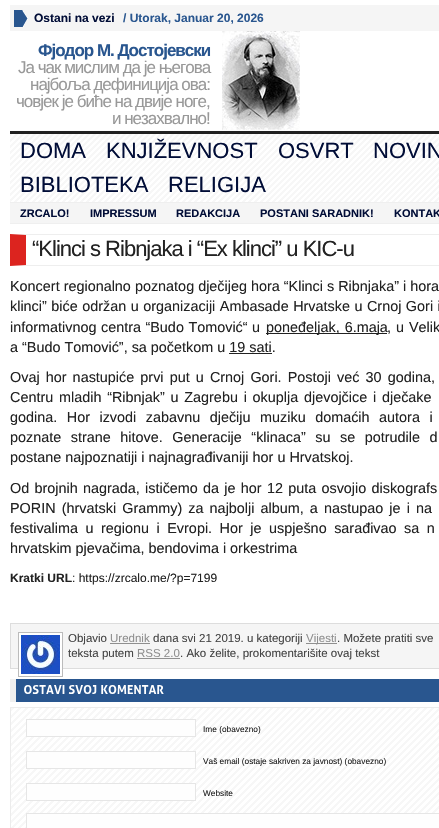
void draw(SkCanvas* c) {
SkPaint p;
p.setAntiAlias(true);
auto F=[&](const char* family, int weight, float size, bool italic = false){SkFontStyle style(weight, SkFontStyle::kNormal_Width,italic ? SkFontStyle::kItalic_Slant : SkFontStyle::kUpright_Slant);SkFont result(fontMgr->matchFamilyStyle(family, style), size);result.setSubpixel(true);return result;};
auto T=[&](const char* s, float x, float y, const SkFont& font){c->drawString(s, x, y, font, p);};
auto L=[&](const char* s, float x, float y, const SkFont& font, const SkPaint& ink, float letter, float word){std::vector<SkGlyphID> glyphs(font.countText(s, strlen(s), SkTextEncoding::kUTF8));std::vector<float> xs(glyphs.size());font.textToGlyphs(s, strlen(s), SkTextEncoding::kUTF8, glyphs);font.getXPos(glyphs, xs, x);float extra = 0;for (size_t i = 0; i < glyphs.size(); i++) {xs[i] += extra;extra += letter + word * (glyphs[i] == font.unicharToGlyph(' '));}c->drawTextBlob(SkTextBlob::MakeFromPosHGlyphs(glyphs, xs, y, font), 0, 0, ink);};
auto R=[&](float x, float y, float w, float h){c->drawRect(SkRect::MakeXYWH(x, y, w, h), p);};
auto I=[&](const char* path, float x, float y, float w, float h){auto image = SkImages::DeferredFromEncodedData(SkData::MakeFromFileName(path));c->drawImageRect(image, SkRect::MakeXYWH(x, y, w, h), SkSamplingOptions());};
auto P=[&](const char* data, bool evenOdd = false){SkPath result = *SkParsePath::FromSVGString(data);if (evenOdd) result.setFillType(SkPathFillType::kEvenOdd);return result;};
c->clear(0xffffffff);
p.setColor(0xfff5f5f5);
R(10,5,429,26);
I("1.png",14,10,14,17);
auto f1 = F("Liberation Sans",700,12);
p.setColor(0xff010d37);
T("Ostani na vezi",34,22,f1);
p.setColor(0xff29568f);
T("/ Utorak, Januar 20, 2026",123,22,f1);
p.setColor(0xff222222);
R(10,131,429,3);
auto f2 = F("Liberation Sans",700,17);
p.setColor(0xff29568f);
L("Фјодор М. Достојевски",38,56,f2,p,-1,0);
auto f3 = F("Liberation Sans",400,17);
p.setColor(0xff999999);
L("Ја чак мислим да је његова",18,73,f3,p,-1,0);
L("најбоља дефиниција ова:",30,90,f3,p,-1,0);
L("човјек је биће на двије ноге,",16,107,f3,p,-1,0);
L("и незахвално!",112,124,f3,p,-1,0);
I("2.png",222,31,78,99);
I("3.png",10,134,429,68);
p.setColor(0xffefefef);
R(10,202,429,1);
auto f4 = F("Liberation Sans",400,22);
p.setColor(0xff010d37);
T("DOMA",20,158,f4);
T("KNJIŽEVNOST",106,158,f4);
T("OSVRT",278,158,f4);
T("NOVIN",373,158,f4);
T("BIBLIOTEKA",20,192,f4);
T("RELIGIJA",168,192,f4);
p.setColor(0xfff5f5f5);
R(10,203,429,20);
p.setColor(0xffefefef);
R(10,223,429,1);
auto f5 = F("Liberation Sans",700,11);
p.setColor(0xff010d37);
T("ZRCALO!",20,217,f5);
T("IMPRESSUM",90,217,f5);
T("REDAKCIJA",176,217,f5);
T("POSTANI SARADNIK!",260,217,f5);
T("KONTAK",394,217,f5);
p.setColor(0xffeeeeee);
c->drawPath(P("M10 234h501v1h-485z"),p);
c->drawPath(P("M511 266h-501l16-1h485z"),p);
p.setColor(0xffdc241f);
c->drawPath(P("M10 266v-32l16 1v30z"),p);
p.setColor(0xff222222);
L("“Klinci s Ribnjaka i “Ex klinci” u KIC-u",32,256,f4,p,-1,0);
auto f6 = F("Liberation Sans",400,14.4);
T("Koncert regionalno poznatog dječijeg hora “Klinci s Ribnjaka” i hora",10,291,f6);
L("klinci” biće održan u organizaciji Ambasade Hrvatske u Crnoj Gori i",10,311,f6,p,0,.5);
L("informativnog centra “Budo Tomović“ u",10,332,f6,p,0,.5);
R(266,333,121,1);
L("poneđeljak, 6.maja",266,332,f6,p,0,1);
L(", u Velik",387,332,f6,p,0,1);
T("a “Budo Tomović”, sa početkom u 19 sati.",10,352,f6);
R(229,353,43,1);
L("Ovaj hor nastupiće prvi put u Crnoj Gori. Postoji već 30 godina,",10,382,f6,p,0,2.1);
L("Centru mladih “Ribnjak” u Zagrebu i okuplja djevojčice i dječake",10,402,f6,p,0,1.75);
L("godina. Hor izvodi zabavnu dječiju muziku domaćih autora i",10,422,f6,p,0,5.5);
L("poznate strane hitove. Generacije “klinaca” su se potrudile d",10,442,f6,p,0,5.5);
T("postane najpoznatiji i najnagrađivaniji hor u Hrvatskoj.",10,462,f6);
L("Od brojnih nagrada, ističemo da je hor 12 puta osvojio diskografs",10,493,f6,p,0,1.25);
L("PORIN (hrvatski Grammy) za najbolji album, a nastupao je i na",10,513,f6,p,0,2.1);
L("festivalima u regionu i Evropi. Hor je uspješno sarađivao sa n",10,533,f6,p,0,3.5);
T("hrvatskim pjevačima, bendovima i orkestrima",10,553,f6);
T("Kratki URL",10,582,f1);
auto f7 = F("Liberation Sans",400,12);
T(": https://zrcalo.me/?p=7199",72,582,f7);
p.setColor(0xfff5f5f5);
c->drawRect(SkRect::MakeXYWH(10.5,623.5,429,45),p);
p.setStroke(true);
p.setStrokeWidth(1);
p.setColor(0xffdddddd);
c->drawRect(SkRect::MakeXYWH(10.5,623.5,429,45),p);
p.setStroke(false);
p.setColor(0xffffffff);
R(19,633,43,36);
p.setStroke(true);
p.setColor(0xffbbbbbb);
c->drawRect(SkRect::MakeXYWH(18.5,632.5,44,44),p);
I("4.png",21,635,39,39);
auto f8 = F("Liberation Sans",400,11.5);
p.setStroke(false);
p.setColor(0xff444444);
T("Objavio",68,642,f8);
p.setColor(0xff8f8f8f);
T("Urednik",110,642,f8);
R(110,643,40,1);
p.setColor(0xff444444);
T("dana svi 21 2019. u kategoriji",153,642,f8);
p.setColor(0xff8f8f8f);
R(306,643,31,1);
T("Vijesti",306,642,f8);
p.setColor(0xff444444);
T(". Možete pratiti sve",337,642,f8);
T("teksta putem",68,657,f8);
p.setColor(0xff8f8f8f);
T("RSS 2.0",137,657,f8);
R(137,658,43,1);
p.setColor(0xff444444);
T(". Ako želite, prokomentarišite ovaj tekst",180,657,f8);
p.setColor(0xff29568f);
R(16,679,423,23);
p.setColor(0xffefefef);
R(10,679,6,23);
I("5.png",24,685,41,9);
I("6.png",68,685,29,9);
I("7.png",101,685,63,9);
I("8.png",11,708,428,120);
p.setStroke(true);
p.setColor(0xffececec);
c->drawRect(SkRect::MakeXYWH(10.5,707.5,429,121),p);
p.setStroke(false);
p.setColor(0xfffefefe);
c->drawRect(SkRect::MakeXYWH(26.5,719.5,169,17),p);
p.setStroke(true);
p.setColor(0xffe6e6e6);
c->drawRect(SkRect::MakeXYWH(26.5,719.5,169,17),p);
auto f9 = F("Liberation Sans",400,8.3);
p.setStroke(false);
p.setColor(0xff222222);
T("Ime (obavezno)",203,732,f9);
p.setColor(0xfffefefe);
c->drawRect(SkRect::MakeXYWH(26.5,751.5,169,17),p);
p.setStroke(true);
p.setColor(0xffe6e6e6);
c->drawRect(SkRect::MakeXYWH(26.5,751.5,169,17),p);
p.setStroke(false);
p.setColor(0xff222222);
T("Vaš email (ostaje sakriven za javnost) (obavezno)",203,764,f9);
p.setColor(0xfffefefe);
c->drawRect(SkRect::MakeXYWH(26.5,783.5,169,17),p);
p.setStroke(true);
p.setColor(0xffe6e6e6);
c->drawRect(SkRect::MakeXYWH(26.5,783.5,169,17),p);
p.setStroke(false);
p.setColor(0xff222222);
T("Website",203,796,f9);
p.setColor(0xfffefefe);
c->drawRect(SkRect::MakeXYWH(26.5,813.5,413,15),p);
p.setStroke(true);
p.setColor(0xffe6e6e6);
c->drawRect(SkRect::MakeXYWH(26.5,813.5,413,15),p);
}
